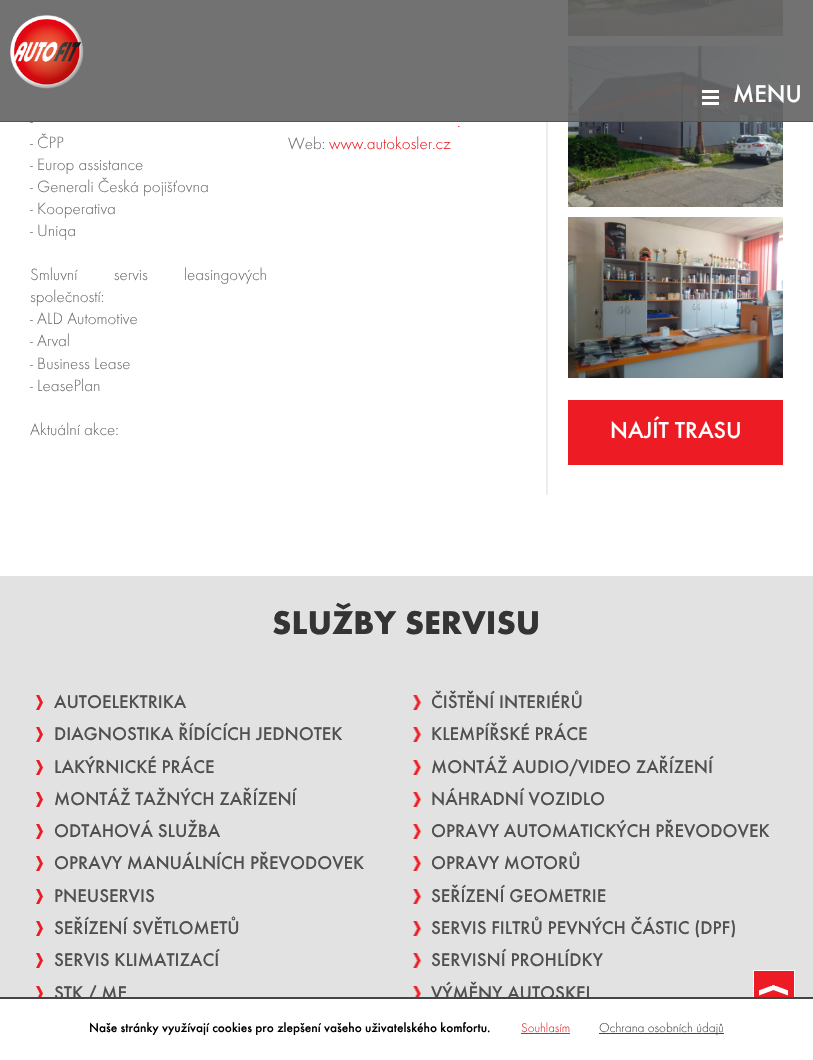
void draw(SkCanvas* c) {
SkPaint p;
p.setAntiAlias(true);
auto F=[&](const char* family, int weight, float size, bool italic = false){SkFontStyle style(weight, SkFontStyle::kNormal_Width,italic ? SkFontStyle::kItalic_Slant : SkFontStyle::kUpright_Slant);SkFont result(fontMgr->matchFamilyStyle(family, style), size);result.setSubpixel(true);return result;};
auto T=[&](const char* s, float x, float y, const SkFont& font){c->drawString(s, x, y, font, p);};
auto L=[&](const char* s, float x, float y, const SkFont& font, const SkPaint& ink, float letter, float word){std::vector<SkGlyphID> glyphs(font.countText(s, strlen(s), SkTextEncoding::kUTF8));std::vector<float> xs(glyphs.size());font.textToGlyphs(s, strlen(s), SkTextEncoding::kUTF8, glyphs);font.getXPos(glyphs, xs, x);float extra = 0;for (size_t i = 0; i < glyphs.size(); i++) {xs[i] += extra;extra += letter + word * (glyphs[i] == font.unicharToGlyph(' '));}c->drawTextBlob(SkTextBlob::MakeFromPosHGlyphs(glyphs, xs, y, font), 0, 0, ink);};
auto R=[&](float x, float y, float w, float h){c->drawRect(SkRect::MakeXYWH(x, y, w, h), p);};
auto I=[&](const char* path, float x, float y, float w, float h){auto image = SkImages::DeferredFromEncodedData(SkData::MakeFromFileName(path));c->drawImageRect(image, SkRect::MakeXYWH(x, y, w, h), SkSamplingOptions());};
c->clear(0xffffffff);
p.setColor(0xffededed);
R(546,0,2,495);
I("3.png",568,0,215,36);
I("4.png",568,46,215,161);
p.setColor(0xe6636363);
R(0,0,813,121);
p.setColor(0xff535359);
R(0,121,813,1);
I("1.png",10,15,74,74);
I("2.png",702,90,17,15);
auto f1 = F("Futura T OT",500,25);
p.setColor(0xffffffff);
T("MENU",733,102,f1);
auto f2 = F("Futura T OT",300,17);
p.setColor(0xff6e6e6e);
T("-",30,126,f2);
T("- ČPP",30,148,f2);
T("- Europ assistance",30,170,f2);
T("- Generali Česká pojišťovna",30,192,f2);
T("- Kooperativa",30,214,f2);
T("- Uniqa",30,236,f2);
L("Smluvní servis leasingových",30,280,f2,p,0,32);
T("společností:",30,302,f2);
T("- ALD Automotive",30,324,f2);
T("- Arval",30,346,f2);
T("- Business Lease",30,369,f2);
T("- LeasePlan",30,391,f2);
T("Aktuální akce:",30,435,f2);
p.setColor(0xffed1c24);
T(".",457,127,f2);
p.setColor(0xff6e6e6e);
T("Web:",288,149,f2);
p.setColor(0xffed1c24);
T("www.autokosler.cz",329,149,f2);
I("5.png",568,217,215,161);
R(568,400,215,65);
auto f3 = F("Futura T OT",500,24);
p.setColor(0xffffffff);
T("NAJÍT TRASU",610,438,f3);
p.setColor(0xffe2e2e2);
R(0,576,813,421);
auto f4 = F("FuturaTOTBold",700,34);
p.setColor(0xff343434);
T("SLUŽBY SERVISU",272,634,f4);
I("6.png",36,695,7,15);
auto f5 = F("Futura T OT",500,19);
p.setColor(0xff505050);
T("AUTOELEKTRIKA",54,708,f5);
I("7.png",413,695,8,15);
T("ČIŠTĚNÍ INTERIÉRŮ",431,708,f5);
I("6.png",36,727,7,15);
T("DIAGNOSTIKA ŘÍDÍCÍCH JEDNOTEK",54,740,f5);
I("7.png",413,727,8,15);
T("KLEMPÍŘSKÉ PRÁCE",431,740,f5);
I("6.png",36,760,7,15);
T("LAKÝRNICKÉ PRÁCE",54,773,f5);
I("7.png",413,760,8,15);
T("MONTÁŽ AUDIO/VIDEO ZAŘÍZENÍ",431,773,f5);
I("6.png",36,792,7,15);
T("MONTÁŽ TAŽNÝCH ZAŘÍZENÍ",54,805,f5);
I("7.png",413,792,8,15);
T("NÁHRADNÍ VOZIDLO",431,805,f5);
I("6.png",36,824,7,15);
T("ODTAHOVÁ SLUŽBA",54,837,f5);
I("7.png",413,824,8,15);
T("OPRAVY AUTOMATICKÝCH PŘEVODOVEK",431,837,f5);
I("6.png",36,856,7,15);
T("OPRAVY MANUÁLNÍCH PŘEVODOVEK",54,869,f5);
I("7.png",413,856,8,15);
T("OPRAVY MOTORŮ",431,869,f5);
I("6.png",36,889,7,15);
T("PNEUSERVIS",54,902,f5);
I("7.png",413,889,8,15);
T("SEŘÍZENÍ GEOMETRIE",431,902,f5);
I("6.png",36,921,7,15);
T("SEŘÍZENÍ SVĚTLOMETŮ",54,934,f5);
I("7.png",413,921,8,15);
T("SERVIS FILTRŮ PEVNÝCH ČÁSTIC (DPF)",431,934,f5);
I("6.png",36,953,7,15);
T("SERVIS KLIMATIZACÍ",54,966,f5);
I("7.png",413,953,8,15);
T("SERVISNÍ PROHLÍDKY",431,966,f5);
I("8.png",36,986,7,11);
T("STK / ME",54,999,f5);
I("9.png",413,986,8,11);
T("VÝMĚNY AUTOSKEL",431,999,f5);
p.setColor(0xffed1c24);
R(754,971,40,26);
I("10.png",759,985,29,11);
p.setStroke(true);
p.setStrokeWidth(1);
p.setColor(0xffffffff);
c->drawRect(SkRect::MakeXYWH(753.5,970.5,41,41),p);
p.setStroke(false);
R(57,999,504,4);
p.setColor(0xff444444);
R(0,997,813,2);
auto f6 = F("Futura T OT",500,13.3);
p.setColor(0xff000000);
T("Naše stránky využívají cookies pro zlepšení vašeho uživatelského komfortu.",89,1032,f6);
auto f7 = F("Futura T OT",300,13);
p.setColor(0xffed1c24);
T("Souhlasím",521,1032,f7);
R(521,1033,49,1);
p.setColor(0xff444444);
R(599,1033,125,1);
auto f8 = F("Futura T OT",300,13.3);
T("Ochrana osobních údajů",599,1032,f8);
}
